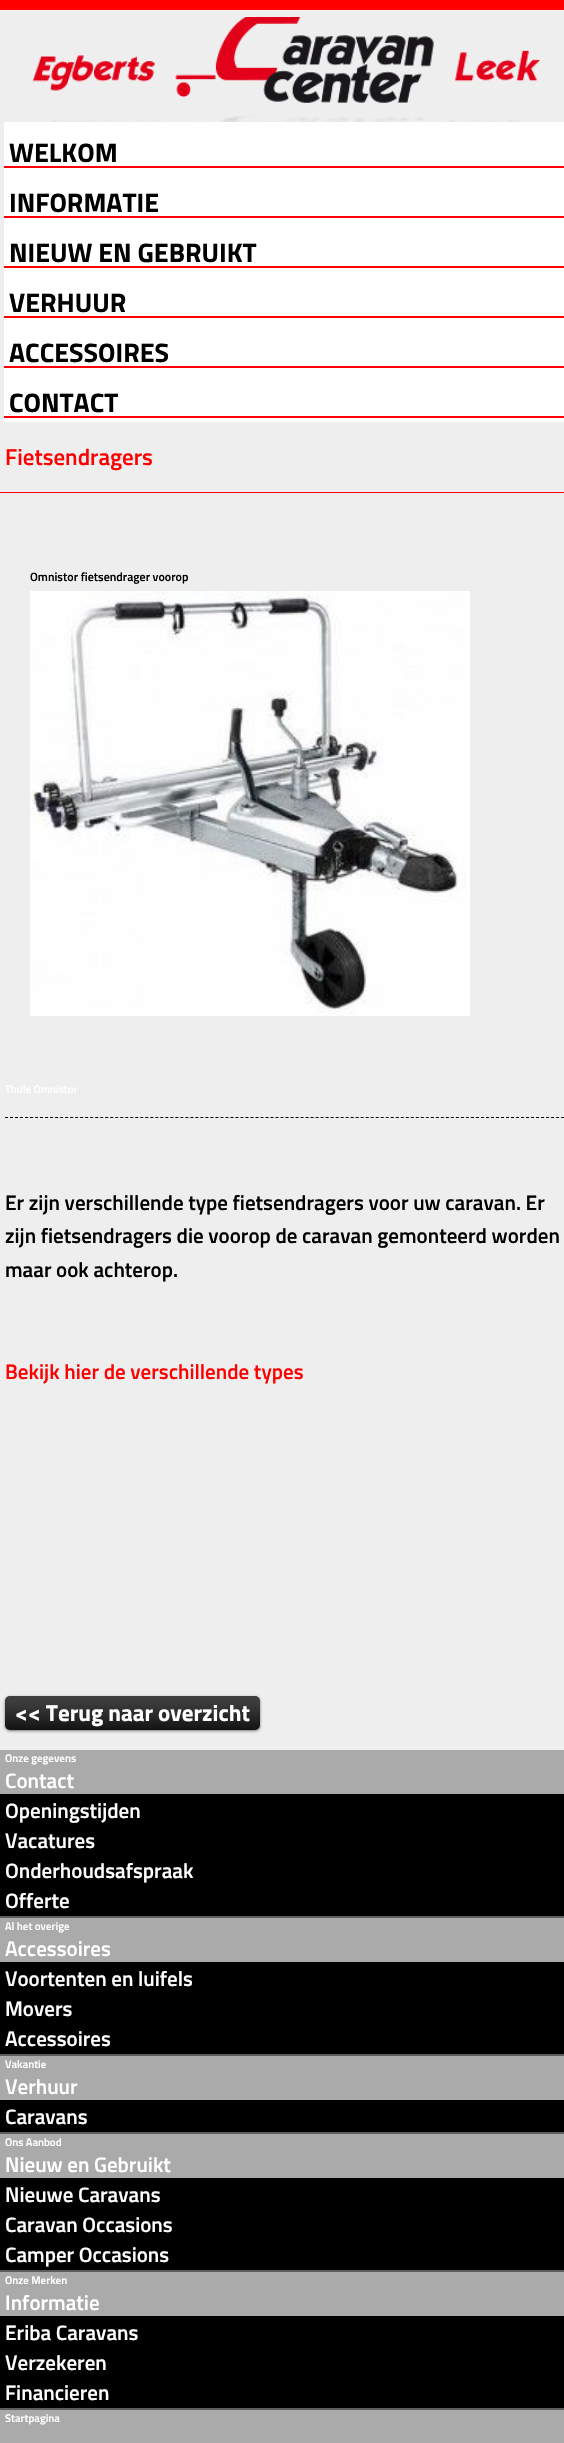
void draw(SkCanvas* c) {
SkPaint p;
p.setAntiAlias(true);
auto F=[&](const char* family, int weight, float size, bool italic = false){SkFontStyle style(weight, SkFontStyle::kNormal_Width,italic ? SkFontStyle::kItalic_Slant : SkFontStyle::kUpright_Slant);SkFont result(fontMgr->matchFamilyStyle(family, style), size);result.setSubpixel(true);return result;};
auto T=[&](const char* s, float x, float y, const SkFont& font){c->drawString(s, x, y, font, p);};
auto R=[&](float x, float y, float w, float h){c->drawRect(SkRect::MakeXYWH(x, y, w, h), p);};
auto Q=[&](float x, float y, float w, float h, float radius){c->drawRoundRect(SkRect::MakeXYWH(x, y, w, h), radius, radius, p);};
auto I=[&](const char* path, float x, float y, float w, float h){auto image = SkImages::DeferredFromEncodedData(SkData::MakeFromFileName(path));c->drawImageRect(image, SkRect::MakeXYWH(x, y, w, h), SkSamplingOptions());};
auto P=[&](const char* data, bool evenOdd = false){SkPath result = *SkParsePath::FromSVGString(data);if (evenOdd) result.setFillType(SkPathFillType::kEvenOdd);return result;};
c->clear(0xffeeeeee);
p.setColor(0xffff0000);
R(0,0,564,10);
I("1.png",33,17,507,105);
p.setColor(0xffffffff);
R(4,122,560,300);
p.setColor(0xffff0000);
R(4,166,560,2);
auto f1 = F("Titillium Web",700,26.75);
p.setColor(0xff000000);
T("WELKOM",9,162,f1);
p.setColor(0xffff0000);
R(4,216,560,2);
p.setColor(0xff000000);
T("INFORMATIE",9,212,f1);
p.setColor(0xffff0000);
R(4,266,560,2);
p.setColor(0xff000000);
T("NIEUW EN GEBRUIKT",9,262,f1);
p.setColor(0xffff0000);
R(4,316,560,2);
p.setColor(0xff000000);
T("VERHUUR",9,312,f1);
p.setColor(0xffff0000);
R(4,366,560,2);
p.setColor(0xff000000);
T("ACCESSOIRES",9,362,f1);
p.setColor(0xffff0000);
R(4,416,560,2);
p.setColor(0xff000000);
T("CONTACT",9,412,f1);
auto f2 = F("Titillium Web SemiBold",600,23);
p.setColor(0xffff0000);
T("Fietsendragers",5,465,f2);
R(0,492,564,1);
auto f3 = F("Titillium Web SemiBold",600,12);
p.setColor(0xff000000);
T("Omnistor fietsendrager voorop",30,581,f3);
I("2.png",30,591,437,425);
p.setColor(0xffffffff);
R(467,591,3,425);
auto f4 = F("Titillium Web SemiBold",600,11);
T("Thule Omnistor",5,1093,f4);
p.setStroke(true);
p.setStrokeWidth(1);
p.setColor(0xff000000);
p.setPathEffect(SkDashPathEffect::Make({{3,2.01f}}, 0));
c->drawPath(P("M5 1117.5h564"),p);
p.setPathEffect(nullptr);
auto f5 = F("Titillium Web SemiBold",600,21);
p.setStroke(false);
T("Er zijn verschillende type fietsendragers voor uw caravan. Er",5,1210,f5);
T("zijn fietsendragers die voorop de caravan gemonteerd worden",5,1243,f5);
T("maar ook achterop.",5,1277,f5);
p.setColor(0xffff0000);
T("Bekijk hier de verschillende types",5,1379,f5);
p.setColor(0x80000000);
p.setMaskFilter(SkMaskFilter::MakeBlur(kNormal_SkBlurStyle, 1.5));
c->drawRoundRect(SkRect::MakeXYWH(5,1697,255,34),5,5,p);
p.setMaskFilter(nullptr);
p.setColor(0xff000000);
Q(5,1696,255,34,5);
I("3.png",5,1696,255,34);
auto f6 = F("Titillium Web",700,23);
p.setColor(0xffffffff);
T("<< Terug naar overzicht",15,1721,f6);
p.setColor(0xffaaaaaa);
R(0,1750,564,44);
p.setColor(0xff5d5d5d);
R(0,1916,564,2);
p.setColor(0xff000000);
R(0,1794,564,122);
p.setColor(0xffffffff);
T("Onze gegevens",5,1762,f4);
T("Contact",5,1788,f5);
T("Openingstijden",5,1818,f5);
T("Vacatures",5,1848,f5);
T("Onderhoudsafspraak",5,1878,f5);
T("Offerte",5,1908,f5);
p.setColor(0xffaaaaaa);
R(0,1918,564,44);
p.setColor(0xff5d5d5d);
R(0,2054,564,2);
p.setColor(0xff000000);
R(0,1962,564,92);
p.setColor(0xffffffff);
T("Al het overige",5,1930,f4);
T("Accessoires",5,1956,f5);
T("Voortenten en luifels",5,1986,f5);
T("Movers",5,2016,f5);
T("Accessoires",5,2046,f5);
p.setColor(0xffaaaaaa);
R(0,2056,564,44);
p.setColor(0xff5d5d5d);
R(0,2132,564,2);
p.setColor(0xff000000);
R(0,2100,564,32);
p.setColor(0xffffffff);
T("Vakantie",5,2068,f4);
T("Verhuur",5,2094,f5);
T("Caravans",5,2124,f5);
p.setColor(0xffaaaaaa);
R(0,2134,564,44);
p.setColor(0xff5d5d5d);
R(0,2270,564,2);
p.setColor(0xff000000);
R(0,2178,564,92);
p.setColor(0xffffffff);
T("Ons Aanbod",5,2146,f4);
T("Nieuw en Gebruikt",5,2172,f5);
T("Nieuwe Caravans",5,2202,f5);
T("Caravan Occasions",5,2232,f5);
T("Camper Occasions",5,2262,f5);
p.setColor(0xffaaaaaa);
R(0,2272,564,44);
p.setColor(0xff5d5d5d);
R(0,2408,564,2);
p.setColor(0xff000000);
R(0,2316,564,92);
p.setColor(0xffffffff);
T("Onze Merken",5,2284,f4);
T("Informatie",5,2310,f5);
T("Eriba Caravans",5,2340,f5);
T("Verzekeren",5,2370,f5);
T("Financieren",5,2400,f5);
p.setColor(0xffaaaaaa);
R(0,2410,564,33);
p.setColor(0xffffffff);
T("Startpagina",5,2422,f4);
}
